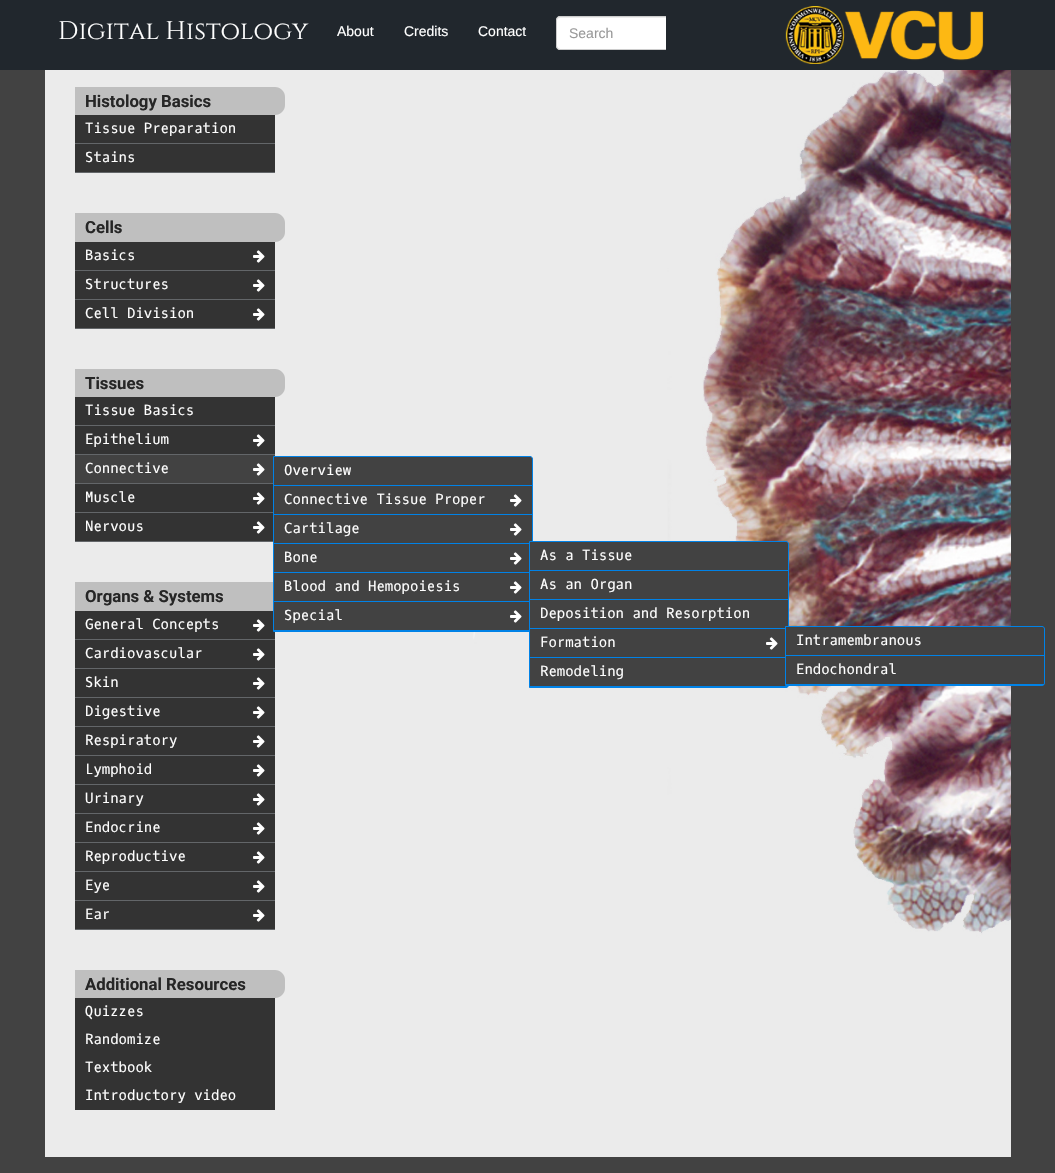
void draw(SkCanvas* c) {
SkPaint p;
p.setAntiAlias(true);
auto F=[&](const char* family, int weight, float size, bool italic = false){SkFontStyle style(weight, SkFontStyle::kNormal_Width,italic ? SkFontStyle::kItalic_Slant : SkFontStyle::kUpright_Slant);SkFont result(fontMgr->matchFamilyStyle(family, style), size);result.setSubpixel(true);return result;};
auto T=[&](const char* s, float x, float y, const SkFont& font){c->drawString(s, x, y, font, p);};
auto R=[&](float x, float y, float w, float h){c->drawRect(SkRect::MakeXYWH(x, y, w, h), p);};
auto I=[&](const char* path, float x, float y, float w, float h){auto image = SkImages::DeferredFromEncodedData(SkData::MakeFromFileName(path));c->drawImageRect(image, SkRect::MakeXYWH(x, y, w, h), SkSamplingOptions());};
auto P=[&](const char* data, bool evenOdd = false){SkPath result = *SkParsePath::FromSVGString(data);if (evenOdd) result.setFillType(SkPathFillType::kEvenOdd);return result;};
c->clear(0xff424242);
p.setColor(0xff21272d);
R(0,0,1055,70);
I("1.png",785,6,199,58);
auto f1 = F("Cinzel",400,25.25);
p.setColor(0xffffffff);
T("Digital Histology",58,39,f1);
auto f2 = F("Liberation Sans",400,14);
T("About",337,36,f2);
T("Credits",404,36,f2);
T("Contact",478,36,f2);
c->drawPath(P("M560 16h106v34h-106c-2 0-4-2-4-4v-26c0-2 2-4 4-4z"),p);
c->save();
c->clipRect(SkRect::MakeXYWH(541,16,125,40));
p.setColor(0xffececec);
c->drawPath(P("M560 18h199c2 0 3 1 3 3c0-2-1-4-3-4h-199c-2 0-3 2-3 4c0-2 1-3 3-3z"),p);
p.setStroke(true);
p.setStrokeWidth(1);
p.setColor(0xffcccccc);
c->drawRoundRect(SkRect::MakeXYWH(556.5,16.5,206,33),3.5,3.5,p);
c->restore();
p.setStroke(false);
p.setColor(0xff999999);
T("Search",569,38,f2);
I("2.png",45,70,966,1087);
p.setColor(0xffbfbfbf);
c->drawPath(P("M75 87h200c5.5 0 10 4.5 10 10v8c0 5.5-4.5 10-10 10h-200z"),p);
auto f3 = F("Roboto",700,16.75);
p.setColor(0xff262626);
T("Histology Basics",85,107,f3);
p.setColor(0xff333333);
R(75,115,200,57);
p.setColor(0xff636669);
R(75,143,200,1);
auto f4 = F("Oxygen Mono",400,14);
p.setColor(0xffffffff);
T("Tissue Preparation",85,133,f4);
p.setColor(0xff636669);
R(75,172,200,1);
p.setColor(0xffffffff);
T("Stains",85,162,f4);
p.setColor(0xffbfbfbf);
c->drawPath(P("M75 213h200c5.5 0 10 4.5 10 10v9c0 5.5-4.5 10-10 10h-200z"),p);
p.setColor(0xff262626);
T("Cells",85,233,f3);
p.setColor(0xff333333);
R(75,242,200,86);
p.setColor(0xff636669);
R(75,270,200,1);
p.setColor(0xffffffff);
T("Basics",85,260,f4);
I("3.png",253,250,12,13);
p.setColor(0xff636669);
R(75,299,200,1);
p.setColor(0xffffffff);
T("Structures",85,289,f4);
I("3.png",253,279,12,13);
p.setColor(0xff636669);
R(75,328,200,1);
p.setColor(0xffffffff);
T("Cell Division",85,318,f4);
I("3.png",253,308,12,13);
p.setColor(0xffbfbfbf);
c->drawPath(P("M75 369h200c5.5 0 10 4.5 10 10v8c0 5.5-4.5 10-10 10h-200z"),p);
p.setColor(0xff262626);
T("Tissues",85,389,f3);
p.setColor(0xff333333);
R(75,397,200,144);
p.setColor(0xff636669);
R(75,425,200,1);
p.setColor(0xffffffff);
T("Tissue Basics",85,415,f4);
p.setColor(0xff636669);
R(75,454,200,1);
p.setColor(0xffffffff);
T("Epithelium",85,444,f4);
I("3.png",253,434,12,13);
p.setColor(0xff424242);
R(75,455,200,28);
p.setColor(0xff636669);
R(75,483,200,1);
p.setColor(0xffffffff);
T("Connective",85,473,f4);
I("4.png",253,463,12,13);
p.setColor(0xff636669);
R(75,512,200,1);
R(75,541,200,1);
p.setColor(0xff333333);
R(75,611,200,318);
p.setColor(0xff424242);
c->drawPath(P("M273.5 456.5h256.5c1.5 0 2.5 1 2.5 2.5v170c0 1.5-1 2.5-2.5 2.5h-256.5z"),p);
p.setStroke(true);
p.setColor(0xff0082e7);
c->drawPath(P("M273.5 456.5h256.5c1.5 0 2.5 1 2.5 2.5v170c0 1.5-1 2.5-2.5 2.5h-256.5z"),p);
p.setStroke(false);
R(274,485,258,1);
p.setColor(0xffffffff);
T("Overview",284,475,f4);
p.setColor(0xff0082e7);
R(274,514,258,1);
p.setColor(0xffffffff);
T("Connective Tissue Proper",284,504,f4);
I("4.png",510,494,12,13);
p.setColor(0xff0082e7);
R(274,543,258,1);
p.setColor(0xffffffff);
T("Cartilage",284,533,f4);
I("4.png",510,523,12,13);
p.setColor(0xff0082e7);
R(274,572,258,1);
p.setColor(0xffffffff);
T("Bone",284,562,f4);
I("4.png",510,552,12,13);
p.setColor(0xff0082e7);
R(274,601,258,1);
R(274,630,258,1);
p.setColor(0xff424242);
c->drawPath(P("M529.5 541.5h256.5c1.5 0 2.5 1 2.5 2.5v141c0 1.5-1 2.5-2.5 2.5h-256.5z"),p);
p.setStroke(true);
p.setColor(0xff0082e7);
c->drawPath(P("M529.5 541.5h256.5c1.5 0 2.5 1 2.5 2.5v141c0 1.5-1 2.5-2.5 2.5h-256.5z"),p);
p.setStroke(false);
R(530,570,258,1);
p.setColor(0xffffffff);
T("As a Tissue",540,560,f4);
p.setColor(0xff0082e7);
R(530,599,258,1);
p.setColor(0xffffffff);
T("As an Organ",540,589,f4);
p.setColor(0xff0082e7);
R(530,628,258,1);
p.setColor(0xffffffff);
T("Deposition and Resorption",540,618,f4);
p.setColor(0xff0082e7);
R(530,657,258,1);
p.setColor(0xffffffff);
T("Formation",540,647,f4);
I("4.png",766,637,12,13);
p.setColor(0xff424242);
c->drawPath(P("M785.5 626.5h256.5c1.5 0 2.5 1 2.5 2.5v54c0 1.5-1 2.5-2.5 2.5h-256.5z"),p);
p.setStroke(true);
p.setColor(0xff0082e7);
c->drawPath(P("M785.5 626.5h256.5c1.5 0 2.5 1 2.5 2.5v54c0 1.5-1 2.5-2.5 2.5h-256.5z"),p);
p.setStroke(false);
R(786,655,258,1);
p.setColor(0xffffffff);
T("Intramembranous",796,645,f4);
p.setColor(0xff0082e7);
R(786,684,258,1);
p.setColor(0xffffffff);
T("Endochondral",796,674,f4);
p.setColor(0xff0082e7);
R(530,686,258,1);
p.setColor(0xffffffff);
T("Remodeling",540,676,f4);
T("Blood and Hemopoiesis",284,591,f4);
I("4.png",510,581,12,13);
T("Special",284,620,f4);
I("4.png",510,610,12,13);
T("Muscle",85,502,f4);
I("3.png",253,492,12,13);
T("Nervous",85,531,f4);
I("3.png",253,521,12,13);
p.setColor(0xffbfbfbf);
R(75,582,198,29);
p.setColor(0xff262626);
T("Organs & Systems",85,602,f3);
p.setColor(0xff636669);
R(75,639,200,1);
p.setColor(0xffffffff);
T("General Concepts",85,629,f4);
I("3.png",253,619,12,13);
p.setColor(0xff636669);
R(75,668,200,1);
p.setColor(0xffffffff);
T("Cardiovascular",85,658,f4);
I("3.png",253,648,12,13);
p.setColor(0xff636669);
R(75,697,200,1);
p.setColor(0xffffffff);
T("Skin",85,687,f4);
I("3.png",253,677,12,13);
p.setColor(0xff636669);
R(75,726,200,1);
p.setColor(0xffffffff);
T("Digestive",85,716,f4);
I("3.png",253,706,12,13);
p.setColor(0xff636669);
R(75,755,200,1);
p.setColor(0xffffffff);
T("Respiratory",85,745,f4);
I("3.png",253,735,12,13);
p.setColor(0xff636669);
R(75,784,200,1);
p.setColor(0xffffffff);
T("Lymphoid",85,774,f4);
I("3.png",253,764,12,13);
p.setColor(0xff636669);
R(75,813,200,1);
p.setColor(0xffffffff);
T("Urinary",85,803,f4);
I("3.png",253,793,12,13);
p.setColor(0xff636669);
R(75,842,200,1);
p.setColor(0xffffffff);
T("Endocrine",85,832,f4);
I("3.png",253,822,12,13);
p.setColor(0xff636669);
R(75,871,200,1);
p.setColor(0xffffffff);
T("Reproductive",85,861,f4);
I("3.png",253,851,12,13);
p.setColor(0xff636669);
R(75,900,200,1);
p.setColor(0xffffffff);
T("Eye",85,890,f4);
I("3.png",253,880,12,13);
p.setColor(0xff636669);
R(75,929,200,1);
p.setColor(0xffffffff);
T("Ear",85,919,f4);
I("3.png",253,909,12,13);
p.setColor(0xffbfbfbf);
c->drawPath(P("M75 970h200c5.5 0 10 4.5 10 10v8c0 5.5-4.5 10-10 10h-200z"),p);
p.setColor(0xff262626);
T("Additional Resources",85,990,f3);
p.setColor(0xff333333);
R(75,998,200,112);
p.setColor(0xffffffff);
T("Quizzes",85,1016,f4);
T("Randomize",85,1044,f4);
T("Textbook",85,1072,f4);
T("Introductory video",85,1100,f4);
}
